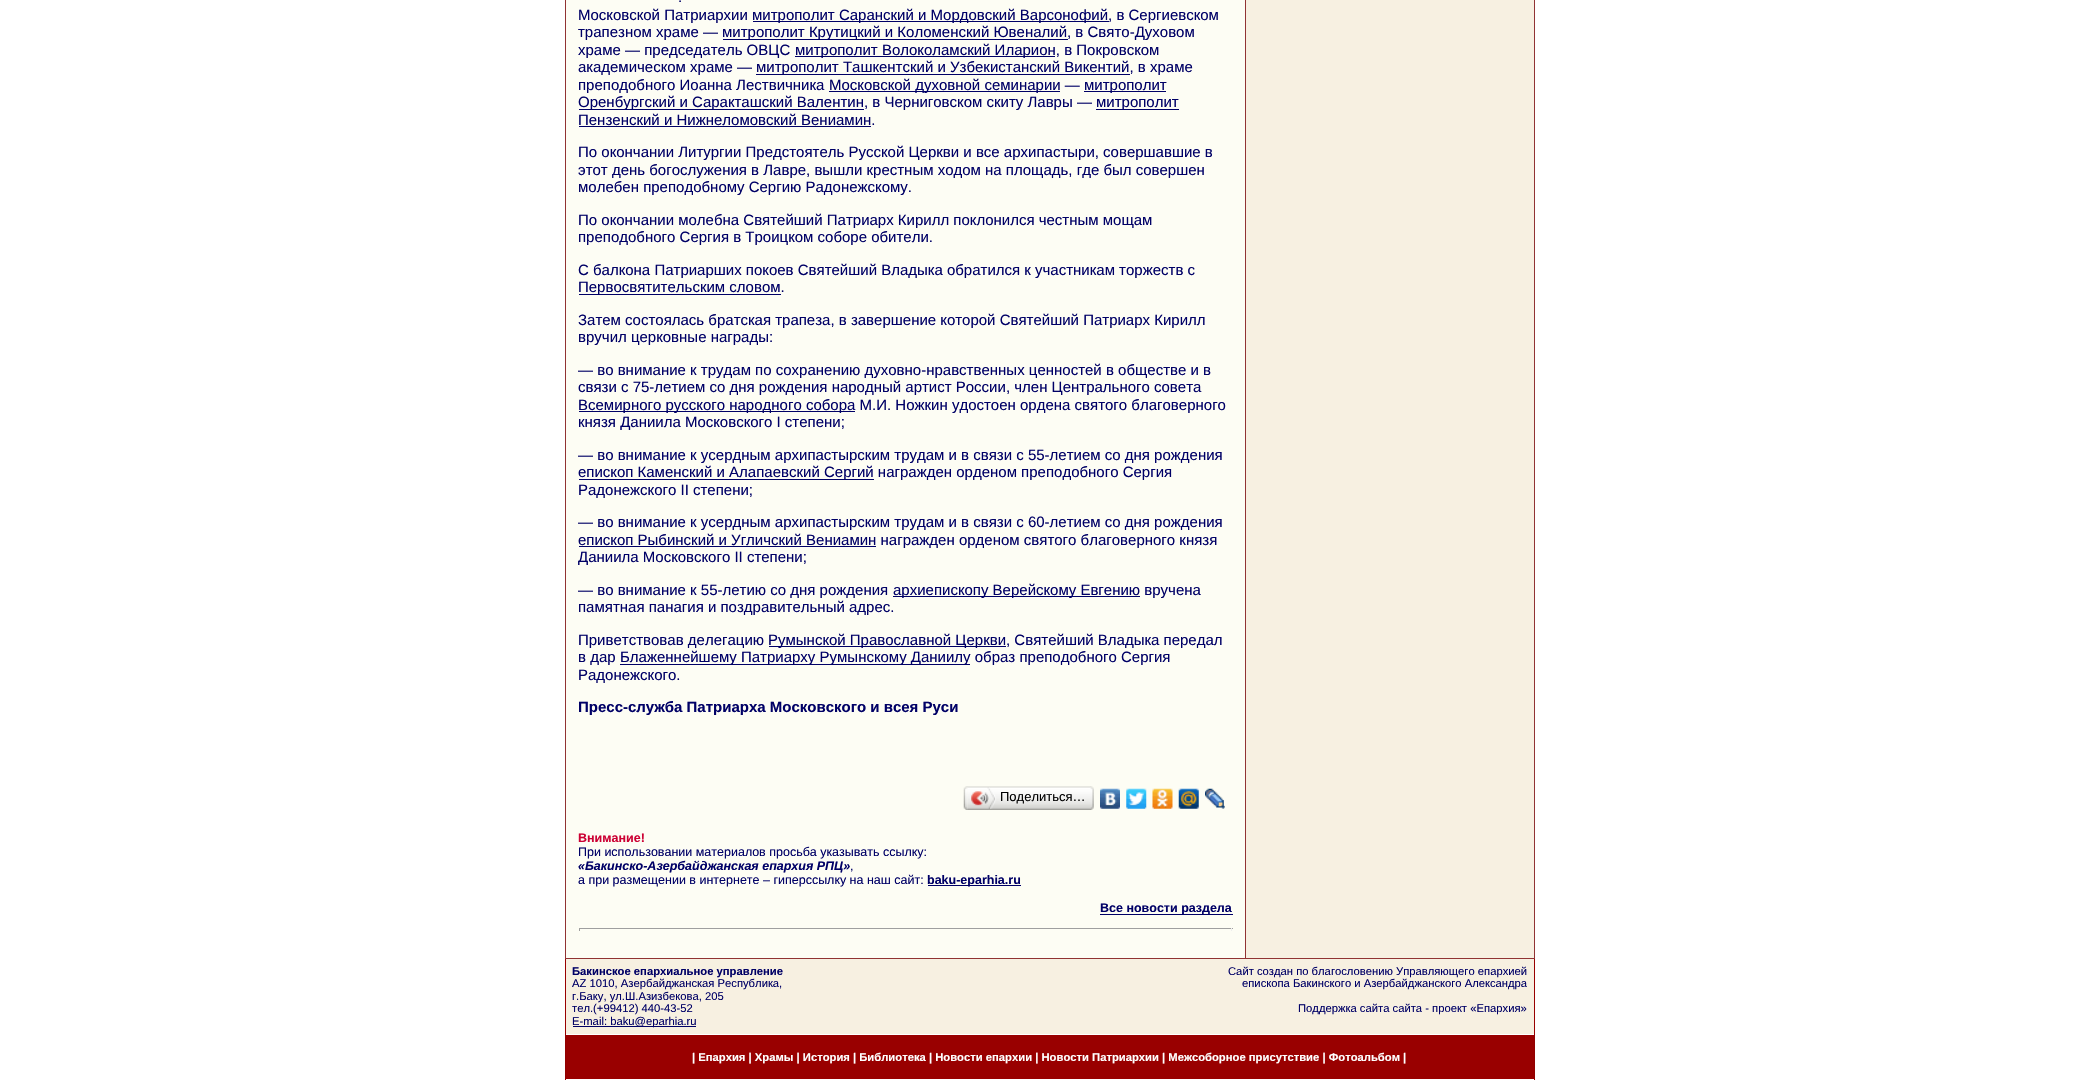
void draw(SkCanvas* c) {
SkPaint p;
p.setAntiAlias(true);
auto F=[&](const char* family, int weight, float size, bool italic = false){SkFontStyle style(weight, SkFontStyle::kNormal_Width,italic ? SkFontStyle::kItalic_Slant : SkFontStyle::kUpright_Slant);SkFont result(fontMgr->matchFamilyStyle(family, style), size);result.setSubpixel(true);return result;};
auto T=[&](const char* s, float x, float y, const SkFont& font){c->drawString(s, x, y, font, p);};
auto R=[&](float x, float y, float w, float h){c->drawRect(SkRect::MakeXYWH(x, y, w, h), p);};
auto I=[&](const char* path, float x, float y, float w, float h){auto image = SkImages::DeferredFromEncodedData(SkData::MakeFromFileName(path));c->drawImageRect(image, SkRect::MakeXYWH(x, y, w, h), SkSamplingOptions());};
c->clear(0xffffffff);
p.setColor(0xff913333);
R(565,0,1,958);
p.setColor(0xfffdfdf4);
R(566,0,679,958);
auto f1 = F("Liberation Sans",400,15);
p.setColor(0xff000066);
T(".",678,2,f1);
T("Московской Патриархии",578,20,f1);
R(753,21,356,1);
T("митрополит Саранский и Мордовский Варсонофий, в Сергиевском",752,20,f1);
T("трапезном храме —",578,37,f1);
R(723,39,345,1);
T("митрополит Крутицкий и Коломенский Ювеналий, в Свято-Духовом",722,37,f1);
T("храме — председатель ОВЦС",578,55,f1);
R(795,56,260,1);
T("митрополит Волоколамский Иларион, в Покровском",795,55,f1);
T("академическом храме —",578,72,f1);
R(756,74,374,1);
T("митрополит Ташкентский и Узбекистанский Викентий, в храме",756,72,f1);
T("преподобного Иоанна Лествичника",578,90,f1);
R(829,91,231,1);
T("Московской духовной семинарии —",829,90,f1);
R(1084,91,82,1);
T("митрополит",1084,90,f1);
R(579,109,285,1);
T("Оренбургский и Саракташский Валентин, в Черниговском скиту Лавры —",578,107,f1);
R(1096,109,83,1);
T("митрополит",1096,107,f1);
T("Пензенский и Нижнеломовский Вениамин.",578,125,f1);
R(579,126,292,1);
T("По окончании Литургии Предстоятель Русской Церкви и все архипастыри, совершавшие в",578,157,f1);
T("этот день богослужения в Лавре, вышли крестным ходом на площадь, где был совершен",578,175,f1);
T("молебен преподобному Сергию Радонежскому.",578,192,f1);
T("По окончании молебна Святейший Патриарх Кирилл поклонился честным мощам",578,225,f1);
T("преподобного Сергия в Троицком соборе обители.",578,242,f1);
T("С балкона Патриарших покоев Святейший Владыка обратился к участникам торжеств с",578,275,f1);
R(579,294,202,1);
T("Первосвятительским словом.",578,292,f1);
T("Затем состоялась братская трапеза, в завершение которой Святейший Патриарх Кирилл",578,325,f1);
T("вручил церковные награды:",578,342,f1);
T("— во внимание к трудам по сохранению духовно-нравственных ценностей в обществе и в",578,375,f1);
T("связи с 75-летием со дня рождения народный артист России, член Центрального совета",578,392,f1);
R(579,411,276,1);
T("Всемирного русского народного собора М.И. Ножкин удостоен ордена святого благоверного",578,410,f1);
T("князя Даниила Московского I степени;",578,427,f1);
T("— во внимание к усердным архипастырским трудам и в связи с 55-летием со дня рождения",578,460,f1);
R(579,479,295,1);
T("епископ Каменский и Алапаевский Сергий награжден орденом преподобного Сергия",578,477,f1);
T("Радонежского II степени;",578,495,f1);
T("— во внимание к усердным архипастырским трудам и в связи с 60-летием со дня рождения",578,527,f1);
R(579,546,297,1);
T("епископ Рыбинский и Угличский Вениамин награжден орденом святого благоверного князя",578,545,f1);
T("Даниила Московского II степени;",578,562,f1);
T("— во внимание к 55-летию со дня рождения",578,595,f1);
R(893,596,247,1);
T("архиепископу Верейскому Евгению вручена",893,595,f1);
T("памятная панагия и поздравительный адрес.",578,612,f1);
T("Приветствовав делегацию",578,645,f1);
R(769,646,237,1);
T("Румынской Православной Церкви, Святейший Владыка передал",768,645,f1);
T("в дар",578,662,f1);
R(620,664,350,1);
T("Блаженнейшему Патриарху Румынскому Даниилу образ преподобного Сергия",620,662,f1);
T("Радонежского.",578,680,f1);
auto f2 = F("Liberation Sans",700,15);
T("Пресс-служба Патриарха Московского и всея Руси",578,712,f2);
I("1.png",967,786,123,24);
I("2.png",963,786,5,24);
I("3.png",971,787,25,22);
auto f3 = F("Liberation Sans",400,13);
p.setColor(0xff000000);
T("Поделиться…",1000,801,f3);
I("4.png",1090,786,4,24);
I("5.png",1100,788,20,21);
I("6.png",1126,788,21,21);
I("7.png",1152,788,21,21);
I("8.png",1178,788,21,21);
I("9.png",1205,788,20,21);
auto f4 = F("Liberation Sans",700,12.5);
p.setColor(0xffcc0033);
T("Внимание!",578,842,f4);
auto f5 = F("Liberation Sans",400,12.5);
p.setColor(0xff000066);
T("При использовании материалов просьба указывать ссылку:",578,856,f5);
auto f6 = F("Liberation Sans",700,12.5,true);
T("«Бакинско-Азербайджанская епархия РПЦ»",578,870,f6);
T(",",850,870,f5);
T("а при размещении в интернете – гиперссылку на наш сайт:",578,884,f5);
R(928,885,93,1);
T("baku-eparhia.ru",927,884,f4);
R(1100,914,133,1);
T("Все новости раздела",1100,912,f4);
p.setColor(0xff9f9f9f);
R(579,928,654,1);
p.setColor(0xffeeeeee);
R(1231,928,1,3);
p.setColor(0xff9f9f9f);
R(579,928,1,3);
p.setColor(0xff913333);
R(1245,0,1,958);
p.setColor(0xfff7f0e1);
R(1246,0,288,958);
p.setColor(0xff913333);
R(1534,0,1,958);
R(565,958,970,1);
p.setColor(0xff990000);
R(565,959,1,75);
p.setColor(0xfff7f0e1);
R(566,959,968,75);
auto f7 = F("Liberation Sans",700,11.25);
p.setColor(0xff000066);
T("Бакинское епархиальное управление",572,975,f7);
auto f8 = F("Liberation Sans",400,11.25);
T("AZ 1010, Азербайджанская Республика,",572,987,f8);
T("г.Баку, ул.Ш.Азизбекова, 205",572,1000,f8);
T("тел.(+99412) 440-43-52",572,1012,f8);
R(573,1026,123,1);
T("E-mail: baku@eparhia.ru",572,1025,f8);
T("Сайт создан по благословению Управляющего епархией",1228,975,f8);
T("епископа Бакинского и Азербайджанского Александра",1242,987,f8);
T("Поддержка сайта сайта - проект «Епархия»",1298,1012,f8);
p.setColor(0xff990000);
R(1534,959,1,75);
p.setColor(0xff910000);
R(565,1034,1,46);
p.setColor(0xff990000);
R(566,1035,968,44);
p.setColor(0xffffffff);
T("| Епархия | Храмы | История | Библиотека | Новости епархии | Новости Патриархии | Межсоборное присутствие | Фотоальбом |",692,1061,f7);
p.setColor(0xff910000);
R(1534,1034,1,46);
}
